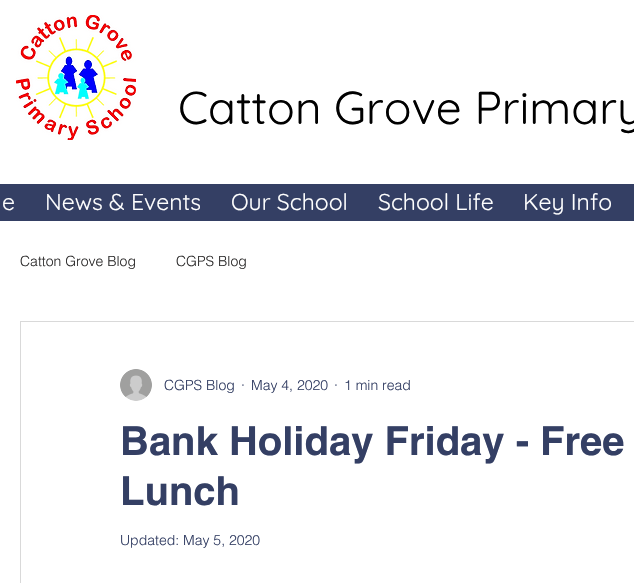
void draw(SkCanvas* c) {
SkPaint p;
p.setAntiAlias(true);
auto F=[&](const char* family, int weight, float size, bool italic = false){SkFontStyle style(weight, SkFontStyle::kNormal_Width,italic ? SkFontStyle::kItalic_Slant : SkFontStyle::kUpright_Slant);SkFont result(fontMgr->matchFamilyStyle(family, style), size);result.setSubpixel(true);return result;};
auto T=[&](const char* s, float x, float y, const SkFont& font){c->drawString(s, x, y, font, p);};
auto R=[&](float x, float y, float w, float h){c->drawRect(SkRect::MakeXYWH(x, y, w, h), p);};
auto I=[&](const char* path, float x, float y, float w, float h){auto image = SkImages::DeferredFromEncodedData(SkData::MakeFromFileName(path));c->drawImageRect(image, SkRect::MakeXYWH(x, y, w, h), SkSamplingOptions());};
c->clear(0xff343f64);
p.setColor(0xffffffff);
R(0,0,634,184);
I("1.png",16,15,120,125);
auto f1 = F("Quicksand",400,46);
p.setColor(0xff000000);
T("Catton Grove Primary",178,124,f1);
auto f2 = F("Quicksand",400,23);
p.setColor(0xffffffff);
T("e",2,210,f2);
T("News & Events",45,210,f2);
T("Our School",231,210,f2);
T("School Life",378,210,f2);
T("Key Info",523,210,f2);
R(0,221,634,362);
auto f3 = F("helvetica",300,14);
p.setColor(0xff2f2e2e);
T("Catton Grove Blog",20,266,f3);
T("CGPS Blog",176,266,f3);
p.setStroke(true);
p.setStrokeWidth(1);
p.setColor(0xffd9d9d9);
c->drawRect(SkRect::MakeXYWH(20.5,321.5,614,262),p);
I("2.png",120,369,32,32);
p.setStroke(false);
p.setColor(0xff343f64);
T("CGPS Blog",164,390,f3);
T("·",241,390,f3);
T("May 4, 2020",251,390,f3);
T("·",334,390,f3);
T("1 min read",344,390,f3);
auto f4 = F("helvetica",700,40);
T("Bank Holiday Friday - Free",120,455,f4);
T("Lunch",120,505,f4);
T("Updated: May 5, 2020",120,545,f3);
}
